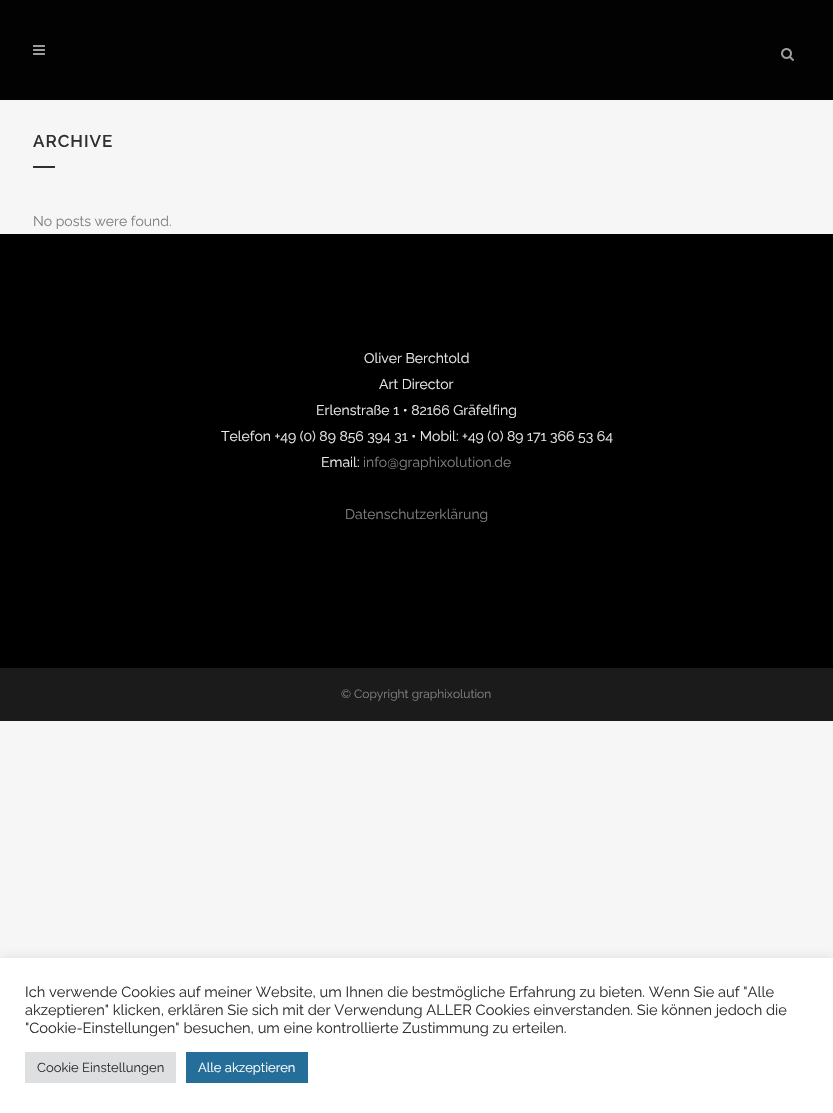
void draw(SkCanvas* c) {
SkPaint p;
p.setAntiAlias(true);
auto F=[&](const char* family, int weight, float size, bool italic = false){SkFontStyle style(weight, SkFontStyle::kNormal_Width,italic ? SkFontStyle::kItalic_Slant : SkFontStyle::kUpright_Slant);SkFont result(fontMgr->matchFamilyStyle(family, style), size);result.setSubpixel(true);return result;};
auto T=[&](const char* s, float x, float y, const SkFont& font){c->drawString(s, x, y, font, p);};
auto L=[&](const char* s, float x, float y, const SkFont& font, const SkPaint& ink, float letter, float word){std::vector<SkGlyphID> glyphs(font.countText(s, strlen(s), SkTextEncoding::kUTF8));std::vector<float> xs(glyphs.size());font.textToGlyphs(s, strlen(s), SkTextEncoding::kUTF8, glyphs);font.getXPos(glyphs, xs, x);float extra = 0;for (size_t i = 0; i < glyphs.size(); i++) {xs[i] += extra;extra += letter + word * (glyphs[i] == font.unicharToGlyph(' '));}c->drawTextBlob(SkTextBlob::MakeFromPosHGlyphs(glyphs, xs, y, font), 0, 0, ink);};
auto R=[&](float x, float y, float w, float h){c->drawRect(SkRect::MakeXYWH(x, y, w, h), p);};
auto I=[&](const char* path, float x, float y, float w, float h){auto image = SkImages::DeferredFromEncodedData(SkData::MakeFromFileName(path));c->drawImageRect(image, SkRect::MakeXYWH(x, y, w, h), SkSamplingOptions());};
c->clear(0xfff6f6f6);
p.setColor(0xff020202);
R(0,0,833,100);
I("1.png",33,45,12,10);
I("2.png",781,48,13,13);
auto f1 = F("Raleway",600,17);
p.setColor(0xff303030);
L("ARCHIVE",33,147,f1,p,1,0);
R(33,166,22,2);
auto f2 = F("Raleway",400,14);
p.setColor(0xff818181);
T("No posts were found.",33,226,f2);
p.setColor(0xff000000);
R(0,234,833,434);
p.setColor(0xffeaeaea);
T("Oliver Berchtold",364,363,f2);
T("Art Director",379,389,f2);
T("Erlenstraße 1 • 82166 Gräfelfing",316,415,f2);
T("Telefon +49 (0) 89 856 394 31 • Mobil: +49 (0) 89 171 366 53 64",221,441,f2);
T("Email:",321,467,f2);
p.setColor(0xff818181);
T("info@graphixolution.de",363,467,f2);
T("Datenschutzerklärung",345,519,f2);
p.setColor(0xff1b1b1b);
R(0,668,833,53);
auto f3 = F("Raleway",400,12);
p.setColor(0xff818181);
T("© Copyright graphixolution",341,698,f3);
p.setColor(0x4dacabab);
p.setMaskFilter(SkMaskFilter::MakeBlur(kNormal_SkBlurStyle, 5));
c->drawRect(SkRect::MakeXYWH(0,957,833,155),p);
p.setMaskFilter(nullptr);
p.setColor(0xffffffff);
R(0,958,833,155);
auto f4 = F("Raleway",400,14.67);
p.setColor(0xff303030);
T("Ich verwende Cookies auf meiner Website, um Ihnen die bestmögliche Erfahrung zu bieten. Wenn Sie auf \"Alle",25,997,f4);
T("akzeptieren\" klicken, erklären Sie sich mit der Verwendung ALLER Cookies einverstanden. Sie können jedoch die",25,1015,f4);
T("\"Cookie-Einstellungen\" besuchen, um eine kontrollierte Zustimmung zu erteilen.",25,1033,f4);
p.setColor(0xffdedfe0);
R(25,1052,151,31);
auto f5 = F("Raleway",400,13);
p.setColor(0xff303030);
T("Cookie Einstellungen",37,1072,f5);
p.setColor(0xff246e99);
R(186,1052,122,31);
p.setColor(0xffffffff);
T("Alle akzeptieren",198,1072,f5);
}
